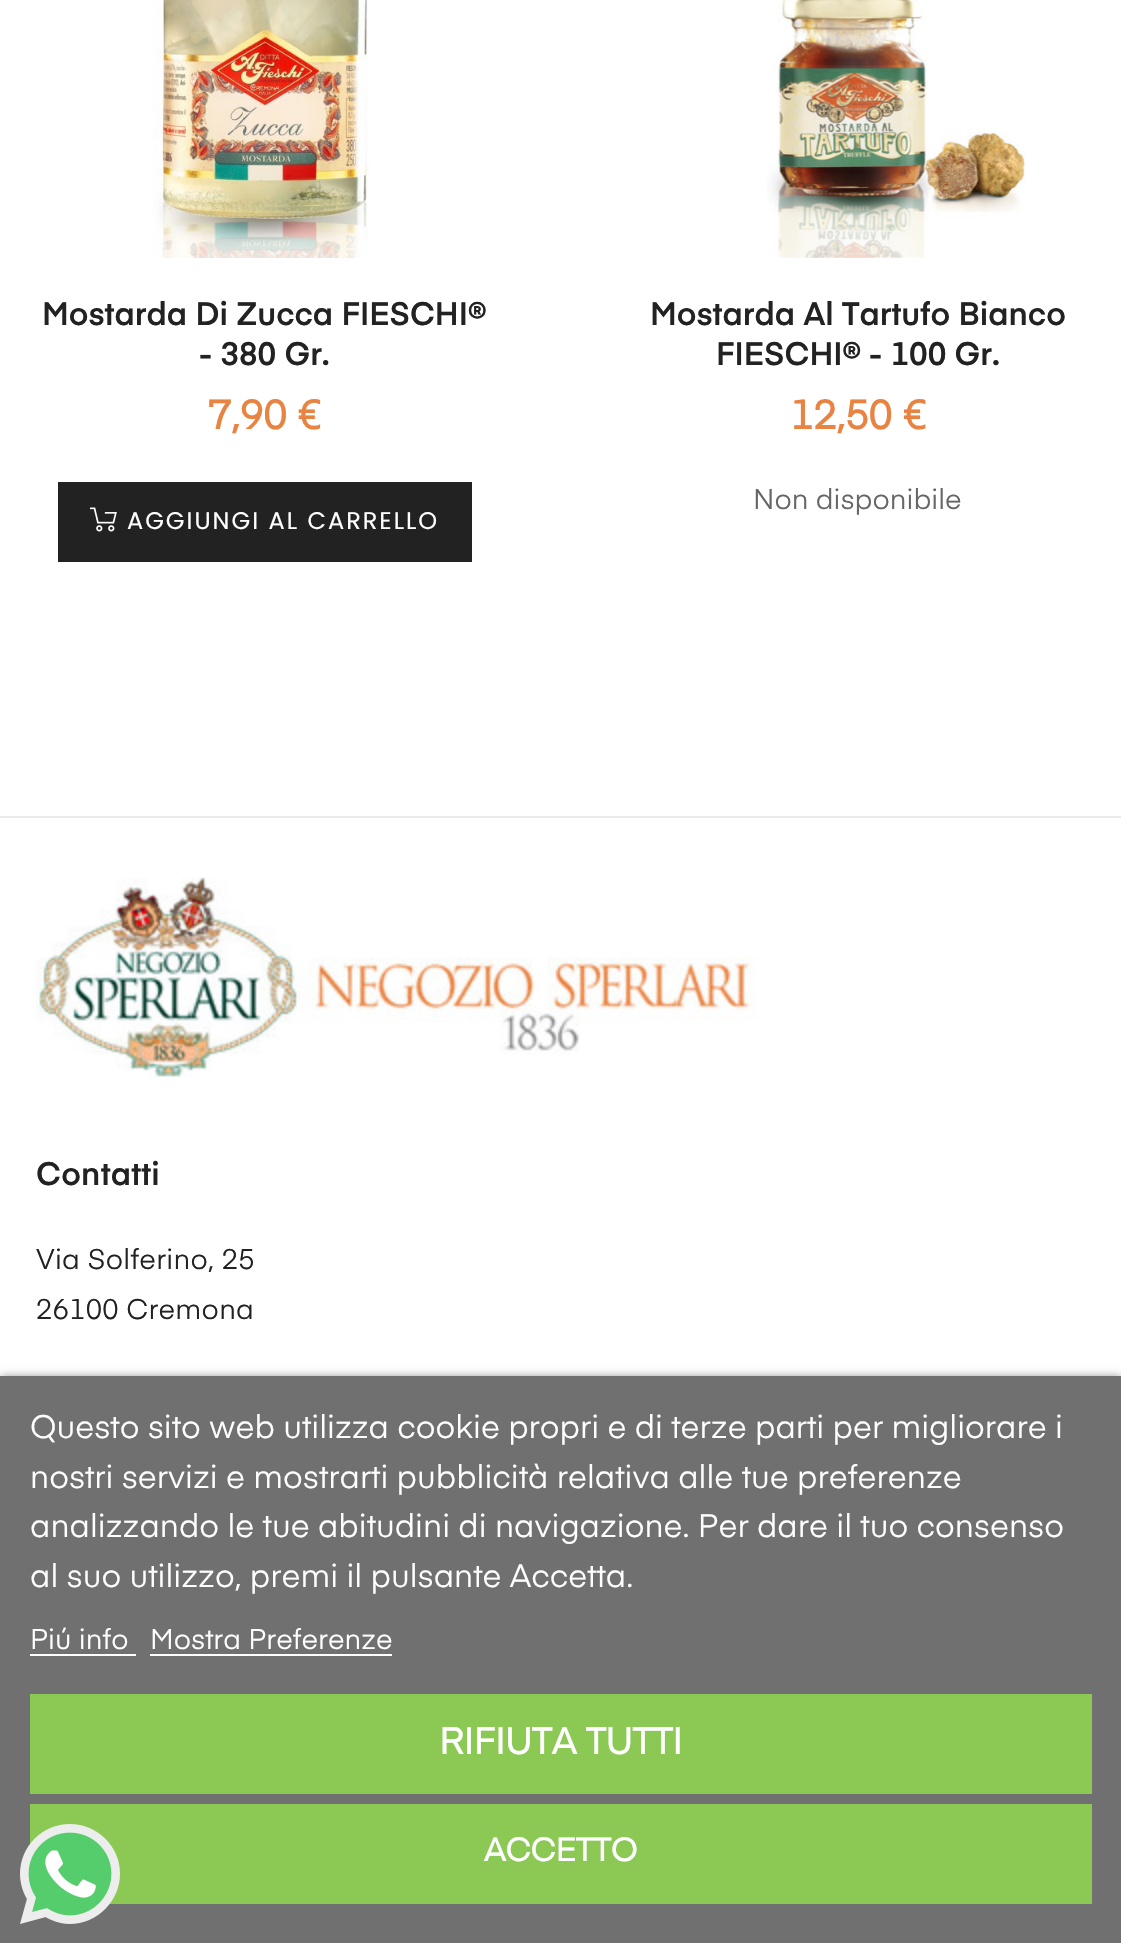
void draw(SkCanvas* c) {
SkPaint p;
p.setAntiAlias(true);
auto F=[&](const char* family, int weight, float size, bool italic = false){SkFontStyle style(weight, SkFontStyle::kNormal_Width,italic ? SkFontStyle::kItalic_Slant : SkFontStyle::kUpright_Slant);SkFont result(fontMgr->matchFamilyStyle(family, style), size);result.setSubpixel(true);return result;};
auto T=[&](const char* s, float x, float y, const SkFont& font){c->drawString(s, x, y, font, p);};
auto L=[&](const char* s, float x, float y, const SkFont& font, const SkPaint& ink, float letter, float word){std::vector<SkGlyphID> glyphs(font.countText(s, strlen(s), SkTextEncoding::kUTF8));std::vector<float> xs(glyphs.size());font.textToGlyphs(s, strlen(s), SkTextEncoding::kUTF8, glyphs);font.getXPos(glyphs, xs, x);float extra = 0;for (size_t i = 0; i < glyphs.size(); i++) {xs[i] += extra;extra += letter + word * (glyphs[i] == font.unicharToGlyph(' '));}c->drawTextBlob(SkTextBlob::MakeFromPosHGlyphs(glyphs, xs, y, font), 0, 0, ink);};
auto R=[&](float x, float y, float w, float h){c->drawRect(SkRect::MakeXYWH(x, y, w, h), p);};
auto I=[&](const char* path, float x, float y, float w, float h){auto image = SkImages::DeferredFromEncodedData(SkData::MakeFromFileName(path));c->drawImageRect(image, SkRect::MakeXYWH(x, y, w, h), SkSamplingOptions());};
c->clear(0xffffffff);
I("1.png",153,0,217,258);
auto f1 = F("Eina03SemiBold",600,32);
p.setColor(0xff222222);
T("Mostarda Di Zucca FIESCHI®",42,325,f1);
T("- 380 Gr.",199,365,f1);
auto f2 = F("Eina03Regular",700,40);
p.setColor(0xffe98341);
T("7,90 €",208,429,f2);
p.setColor(0xff222222);
R(58,482,414,80);
I("2.png",90,507,27,25);
auto f3 = F("Poppins",400,24);
p.setColor(0xffffffff);
L("AGGIUNGI AL CARRELLO",127,529,f3,p,2,0);
I("3.png",767,0,258,258);
p.setColor(0xff222222);
T("Mostarda Al Tartufo Bianco",650,325,f1);
T("FIESCHI® - 100 Gr.",716,365,f1);
p.setColor(0xffe98341);
T("12,50 €",790,429,f2);
auto f4 = F("Eina03Regular",400,28);
p.setColor(0xff666666);
T("Non disponibile",753,509,f4);
p.setColor(0xffeaeaea);
R(0,816,1121,2);
I("4.png",36,877,720,201);
p.setColor(0xff222222);
L("Contatti",36,1185,f1,p,.25,0);
L("Via Solferino, 25",36,1269,f4,p,.25,0);
L("26100 Cremona",36,1319,f4,p,.25,0);
p.setColor(0xff707070);
p.setMaskFilter(SkMaskFilter::MakeBlur(kNormal_SkBlurStyle, 5));
c->drawRect(SkRect::MakeXYWH(0,1378,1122,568),p);
p.setMaskFilter(nullptr);
R(0,1376,1121,567);
auto f5 = F("Eina03Regular",400,32);
p.setColor(0xffffffff);
T("Questo sito web utilizza cookie propri e di terze parti per migliorare i",30,1438,f5);
T("nostri servizi e mostrarti pubblicità relativa alle tue preferenze",30,1488,f5);
T("analizzando le tue abitudini di navigazione. Per dare il tuo consenso",30,1537,f5);
T("al suo utilizzo, premi il pulsante Accetta.",30,1587,f5);
T("Piú info",30,1649,f4);
R(30,1654,106,2);
T("Mostra Preferenze",150,1649,f4);
R(150,1654,242,2);
p.setColor(0xff8bc954);
R(30,1694,1062,100);
auto f6 = F("Eina03Regular",700,36.5);
p.setColor(0xffffffff);
T("RIFIUTA TUTTI",439,1754,f6);
p.setColor(0xff8bc954);
R(30,1804,1062,100);
auto f7 = F("Eina03Regular",700,32);
p.setColor(0xffffffff);
T("ACCETTO",484,1861,f7);
I("5.png",20,1824,100,100);
}
